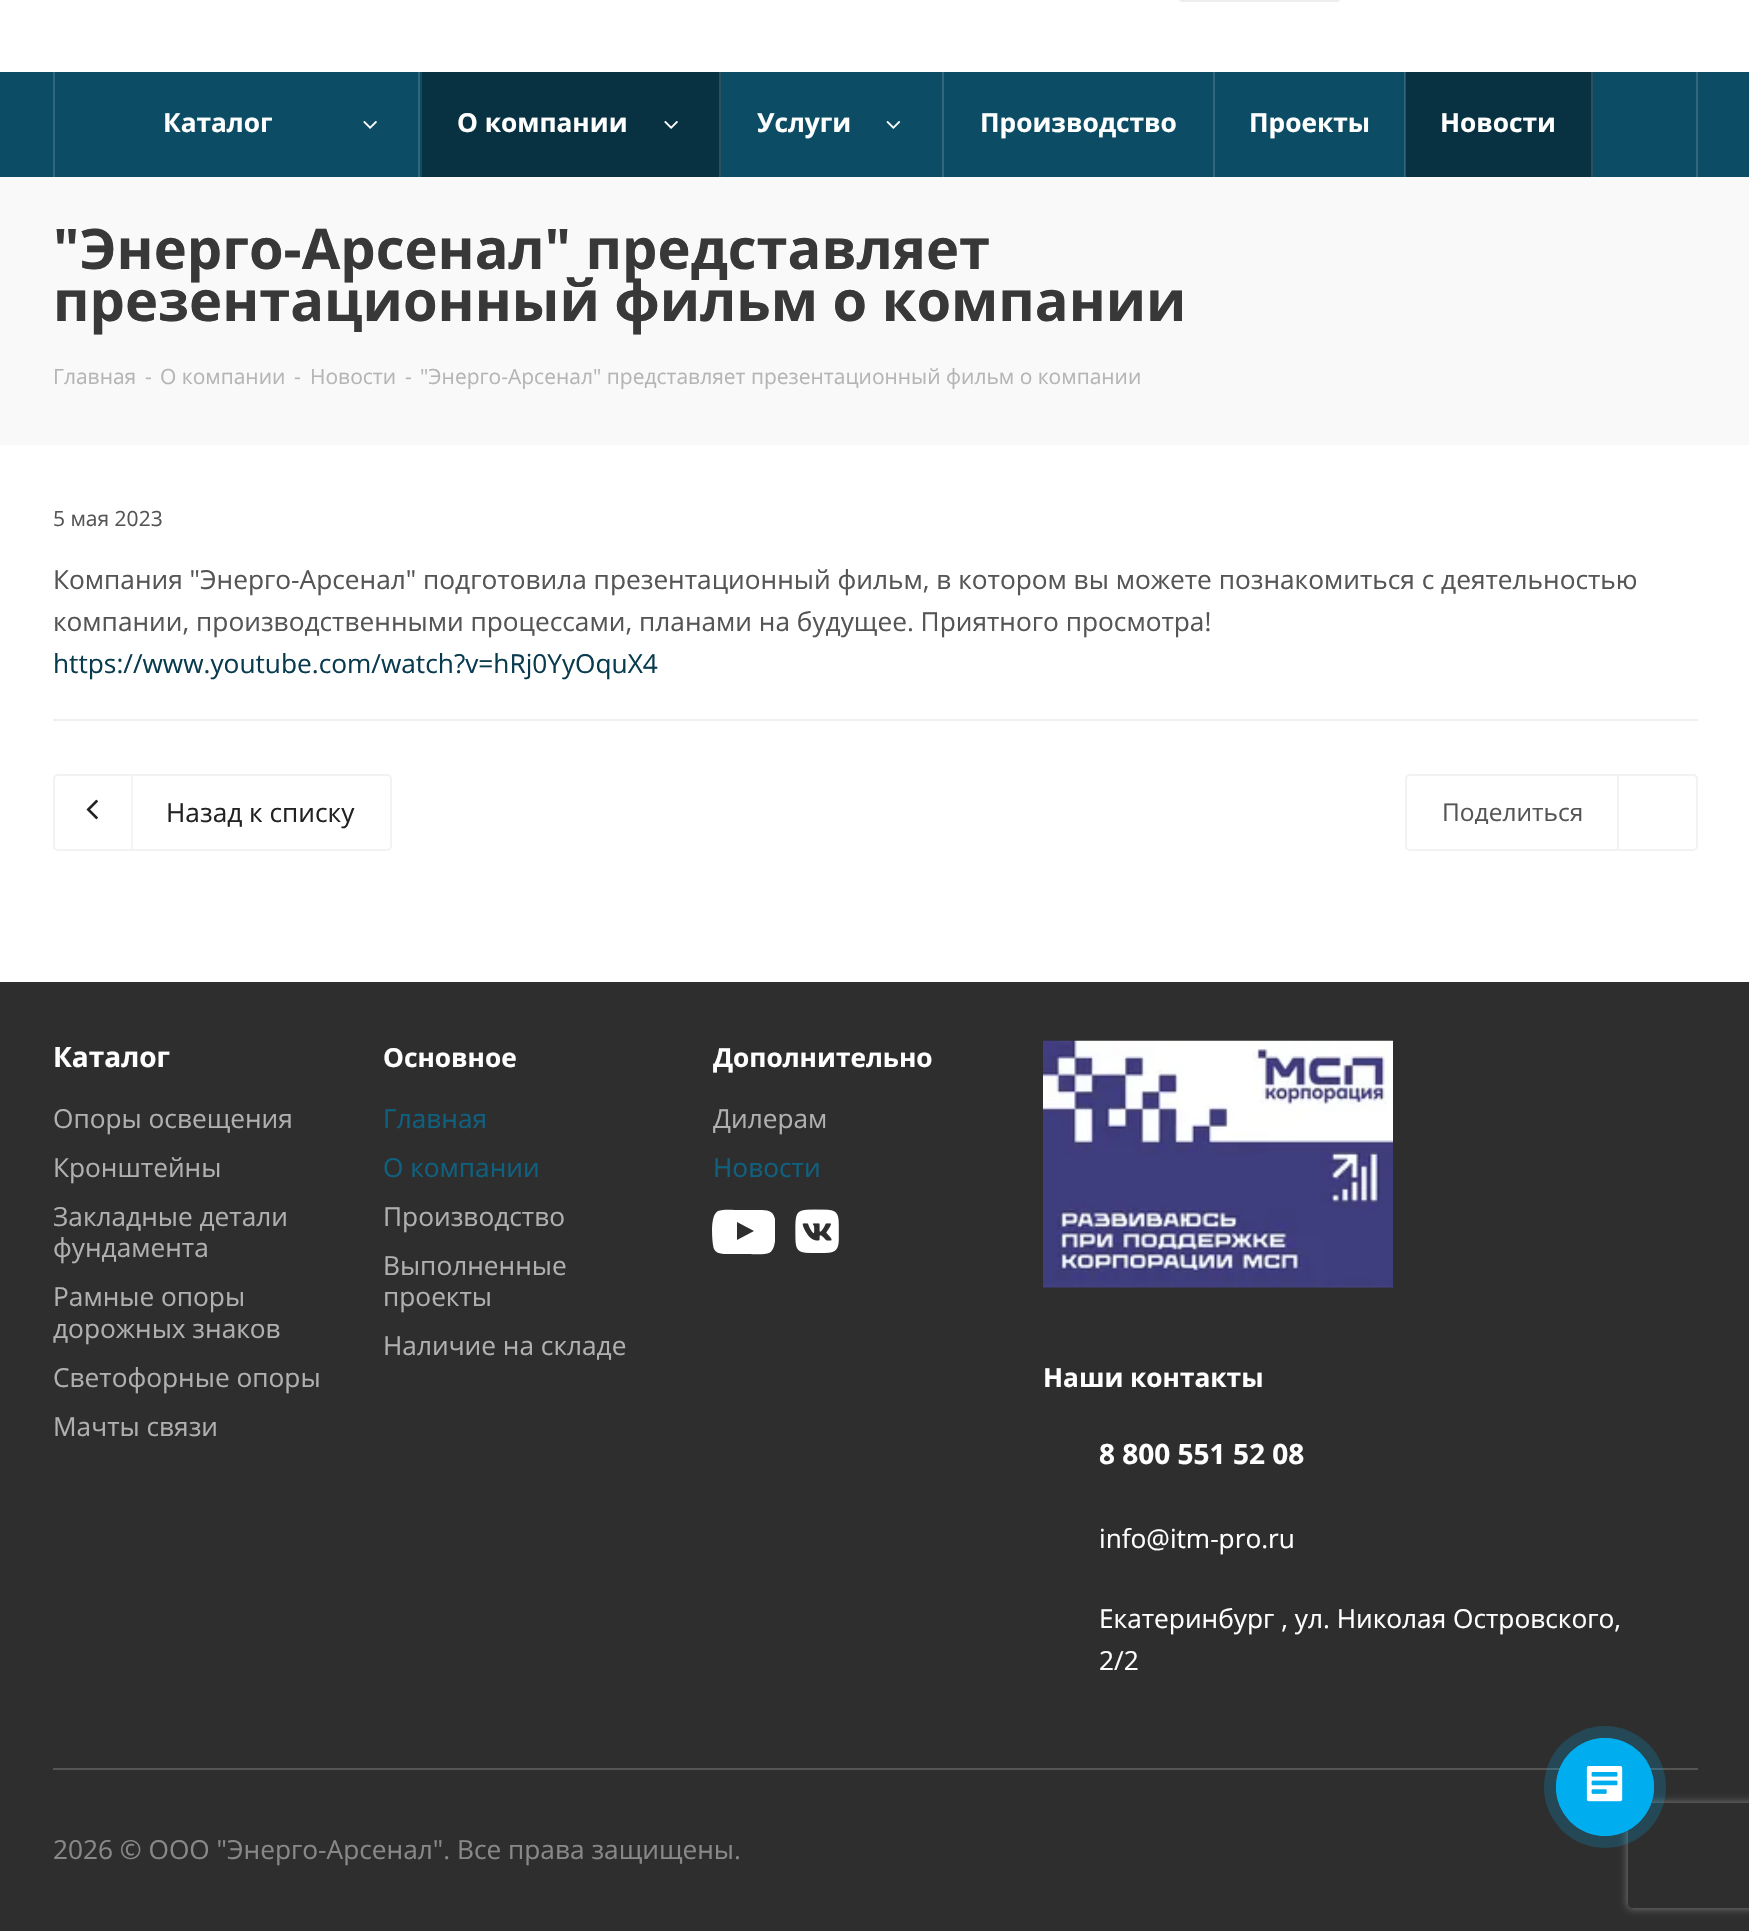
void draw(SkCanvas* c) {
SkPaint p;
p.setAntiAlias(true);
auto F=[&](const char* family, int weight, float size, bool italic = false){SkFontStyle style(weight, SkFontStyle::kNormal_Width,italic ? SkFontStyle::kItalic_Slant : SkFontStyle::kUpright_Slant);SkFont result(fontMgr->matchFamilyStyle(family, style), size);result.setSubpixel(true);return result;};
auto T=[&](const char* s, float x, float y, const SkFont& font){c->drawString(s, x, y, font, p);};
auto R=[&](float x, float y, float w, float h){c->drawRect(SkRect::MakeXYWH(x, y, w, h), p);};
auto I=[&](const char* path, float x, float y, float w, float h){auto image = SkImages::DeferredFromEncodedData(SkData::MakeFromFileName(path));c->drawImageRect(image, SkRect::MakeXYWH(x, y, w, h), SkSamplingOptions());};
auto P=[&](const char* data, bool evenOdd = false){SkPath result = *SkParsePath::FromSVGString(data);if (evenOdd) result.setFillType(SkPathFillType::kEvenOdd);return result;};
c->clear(0xffffffff);
p.setStroke(true);
p.setStrokeWidth(2);
p.setColor(0xffeeeeee);
c->drawRoundRect(SkRect::MakeXYWH(1179,-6,161,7),4,4,p);
p.setStroke(false);
p.setColor(0xff0c4c65);
R(0,72,1749,105);
p.setColor(0xff30677c);
R(1404,72,1,105);
R(53,72,2,105);
R(418,72,2,105);
auto f1 = F("Open Sans",700,26.25);
p.setColor(0xffffffff);
T("Каталог",163,132,f1);
I("1.png",363,121,14,8);
p.setColor(0xff083141);
R(422,72,297,105);
p.setColor(0xff2d505e);
R(719,72,2,105);
p.setColor(0xffffffff);
T("О компании",457,132,f1);
I("2.png",664,121,14,8);
p.setColor(0xff30677c);
R(942,72,2,105);
p.setColor(0xffffffff);
T("Услуги",757,132,f1);
I("3.png",886,121,15,8);
p.setColor(0xff30677c);
R(1213,72,2,105);
p.setColor(0xffffffff);
T("Производство",980,132,f1);
T("Проекты",1249,132,f1);
p.setColor(0xff083141);
R(1406,72,185,105);
p.setColor(0xff2d505e);
R(1405,72,1,105);
R(1591,72,2,105);
p.setColor(0xffffffff);
T("Новости",1440,132,f1);
p.setColor(0xff30677c);
R(1696,72,2,105);
p.setColor(0xfff9f9f9);
R(0,177,1749,268);
auto f2 = F("Open Sans",700,56);
p.setColor(0xff383838);
T("\"Энерго-Арсенал\" представляет",53,269,f2);
T("презентационный фильм о компании",53,321,f2);
auto f3 = F("Open Sans",400,21);
p.setColor(0xffb6b5b5);
T("Главная",53,384,f3);
T("-",145,384,f3);
T("О компании",160,384,f3);
T("-",294,384,f3);
T("Новости",310,384,f3);
T("-",405,384,f3);
T("\"Энерго-Арсенал\" представляет презентационный фильм о компании",420,384,f3);
p.setColor(0xff555555);
T("5 мая 2023",53,526,f3);
auto f4 = F("Open Sans",400,26.25);
T("Компания \"Энерго-Арсенал\" подготовила презентационный фильм, в котором вы можете познакомиться с деятельностью",53,589,f4);
T("компании, производственными процессами, планами на будущее. Приятного просмотра!",53,631,f4);
p.setColor(0xff093b4f);
T("https://www.youtube.com/watch?v=hRj0YyOquX4",53,673,f4);
p.setColor(0xfff0f0f0);
R(53,719,1645,2);
p.setStroke(true);
p.setColor(0xfff2f2f2);
c->drawRoundRect(SkRect::MakeXYWH(54,775,337,75),4,4,p);
I("4.png",86,799,12,21);
p.setStroke(false);
p.setColor(0xfff5f5f5);
R(131,775,2,74);
p.setColor(0xff222222);
T("Назад к списку",166,822,f4);
p.setStroke(true);
p.setColor(0xfff2f2f2);
c->drawRoundRect(SkRect::MakeXYWH(1406,775,291,75),4,4,p);
c->save();
c->clipPath(P("M1446 798h134c2 0 4 2 4 4v18c0 2-2 4-4 4h-134c-2 0-4-2-4-4v-18c0-2 2-4 4-4z"),true);
auto f5 = F("Open Sans",400,24.5);
p.setStroke(false);
p.setColor(0xff555555);
T("Поделиться",1442,821,f5);
c->restore();
p.setColor(0xfff2f2f2);
R(1617,775,2,74);
p.setColor(0xff2e2e2f);
R(0,982,1749,949);
auto f6 = F("Open Sans",700,28);
p.setColor(0xffffffff);
T("Каталог",53,1067,f6);
p.setColor(0xffb0b0b0);
T("Опоры освещения",53,1128,f4);
T("Кронштейны",53,1177,f4);
T("Закладные детали",53,1226,f4);
T("фундамента",53,1257,f4);
T("Рамные опоры",53,1306,f4);
T("дорожных знаков",53,1338,f4);
T("Светофорные опоры",53,1387,f4);
T("Мачты связи",53,1436,f4);
p.setColor(0xffffffff);
T("Основное",383,1067,f1);
p.setColor(0xff0f6180);
T("Главная",383,1128,f4);
T("О компании",383,1177,f4);
p.setColor(0xffb0b0b0);
T("Производство",383,1226,f4);
T("Выполненные",383,1275,f4);
T("проекты",383,1306,f4);
T("Наличие на складе",383,1355,f4);
p.setColor(0xffffffff);
T("Дополнительно",713,1067,f1);
p.setColor(0xffb0b0b0);
T("Дилерам",713,1128,f4);
p.setColor(0xff0f6180);
T("Новости",713,1177,f4);
c->save();
c->clipRect(SkRect::MakeXYWH(712,1201,63,63));
p.setColor(0xffffffff);
c->drawPath(P("M737 1240v-18l17 9zm38-21c-2-9-8-9-16-9h-20c-5 0-16-1-21 1c-8 4-6 27-5 34c1 10 10 9 18 9h17c5 0 17 1 21-1c9-4 6-27 6-34z",true),p);
c->restore();
I("5.png",795,1209,44,44);
I("6.png",1043,1040,350,248);
T("Наши контакты",1043,1387,f1);
T("8 800 551 52 08",1099,1464,f6);
T("info@itm-pro.ru",1099,1548,f4);
T("Екатеринбург , ул. Николая Островского,",1099,1628,f4);
T("2/2",1099,1670,f4);
p.setColor(0xff555555);
R(53,1768,1645,2);
p.setColor(0xff888888);
T("2026 © ООО \"Энерго-Арсенал\". Все права защищены.",53,1859,f4);
c->save();
c->clipPath(P("M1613 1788h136v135h-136zm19 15h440c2 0 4 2 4 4v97c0 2-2 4-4 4h-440c-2 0-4-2-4-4v-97c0-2 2-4 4-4z",true),true);
p.setColor(0xff808080);
p.setMaskFilter(SkMaskFilter::MakeBlur(kNormal_SkBlurStyle, 4.5));
c->drawRoundRect(SkRect::MakeXYWH(1628,1803,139,105),4,4,p);
p.setMaskFilter(nullptr);
c->restore();
p.setColor(0x3300aeef);
c->drawCircle(1605,1787,61,p);
p.setStroke(true);
p.setStrokeWidth(1);
p.setColor(0xff00aeef);
c->drawCircle(1605,1787,48.5,p);
p.setStroke(false);
c->drawCircle(1605,1787,49,p);
I("7.png",1586,1766,37,36);
}
